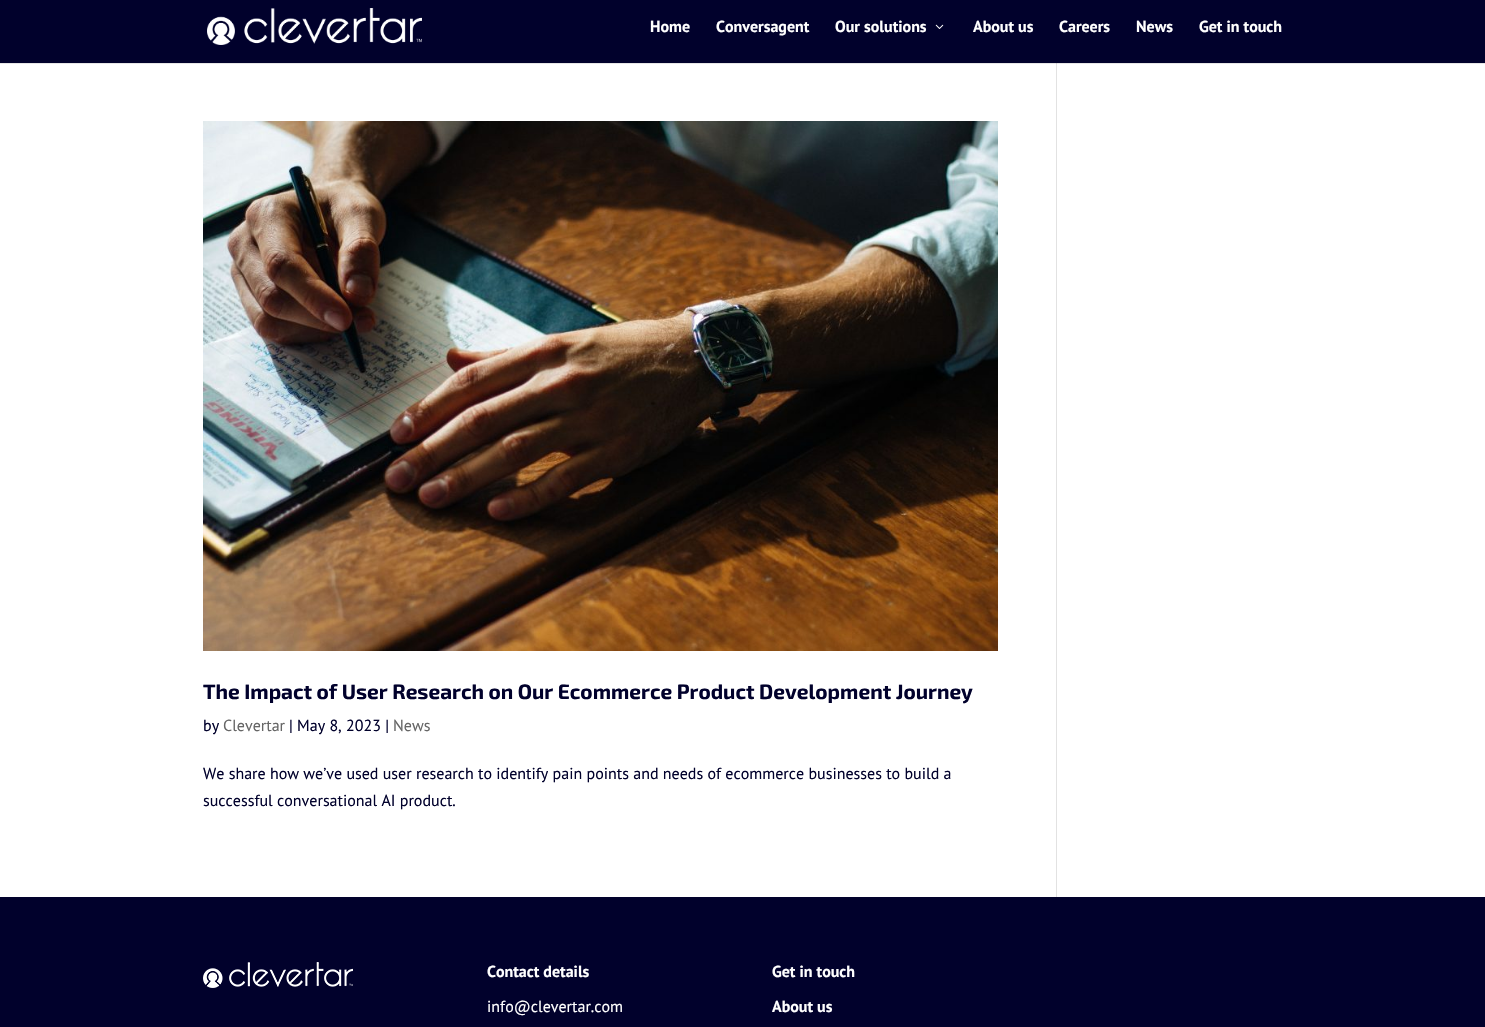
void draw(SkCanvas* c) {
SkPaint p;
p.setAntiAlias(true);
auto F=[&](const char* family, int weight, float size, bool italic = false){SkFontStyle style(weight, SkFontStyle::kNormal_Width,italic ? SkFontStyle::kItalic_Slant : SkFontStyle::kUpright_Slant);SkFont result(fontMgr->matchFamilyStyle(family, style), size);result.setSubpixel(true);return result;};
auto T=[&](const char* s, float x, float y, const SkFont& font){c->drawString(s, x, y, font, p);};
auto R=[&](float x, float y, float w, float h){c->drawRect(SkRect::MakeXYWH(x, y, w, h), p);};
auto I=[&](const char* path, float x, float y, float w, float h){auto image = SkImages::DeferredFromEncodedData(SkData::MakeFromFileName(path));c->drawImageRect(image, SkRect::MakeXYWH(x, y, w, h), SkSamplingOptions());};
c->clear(0xffffffff);
p.setColor(0xffe6e6e6);
R(0,63,1485,1);
p.setColor(0xff01012c);
R(0,0,1485,63);
I("1.png",207,8,215,37);
auto f1 = F("PT Sans",700,16);
p.setColor(0xffffffff);
T("Home",650,32,f1);
T("Conversagent",716,32,f1);
T("Our solutions",835,32,f1);
I("2.png",935,24,9,5);
T("About us",973,32,f1);
T("Careers",1059,32,f1);
T("News",1136,32,f1);
T("Get in touch",1199,32,f1);
I("3.png",203,121,795,530);
auto f2 = F("Exo 2",700,20.8);
p.setColor(0xff01012c);
T("The Impact of User Research on Our Ecommerce Product Development Journey",203,699,f2);
auto f3 = F("PT Sans",400,16);
T("by",203,731,f3);
p.setColor(0xff666666);
T("Clevertar",223,731,f3);
p.setColor(0xff01012c);
T("| May 8, 2023 |",289,731,f3);
p.setColor(0xff666666);
T("News",393,731,f3);
p.setColor(0xff01012c);
T("We share how we’ve used user research to identify pain points and needs of ecommerce businesses to build a",203,779,f3);
T("successful conversational AI product.",203,806,f3);
p.setColor(0xffe2e2e2);
R(1056,63,1,834);
p.setColor(0xffcbcbcb);
R(1056,63,1,1);
p.setColor(0xff01012c);
R(0,897,1485,130);
I("4.png",203,962,150,26);
p.setColor(0xffffffff);
T("Contact details",487,977,f1);
T("info@clevertar.com",487,1012,f3);
T("Get in touch",772,977,f1);
T("About us",772,1012,f1);
}
